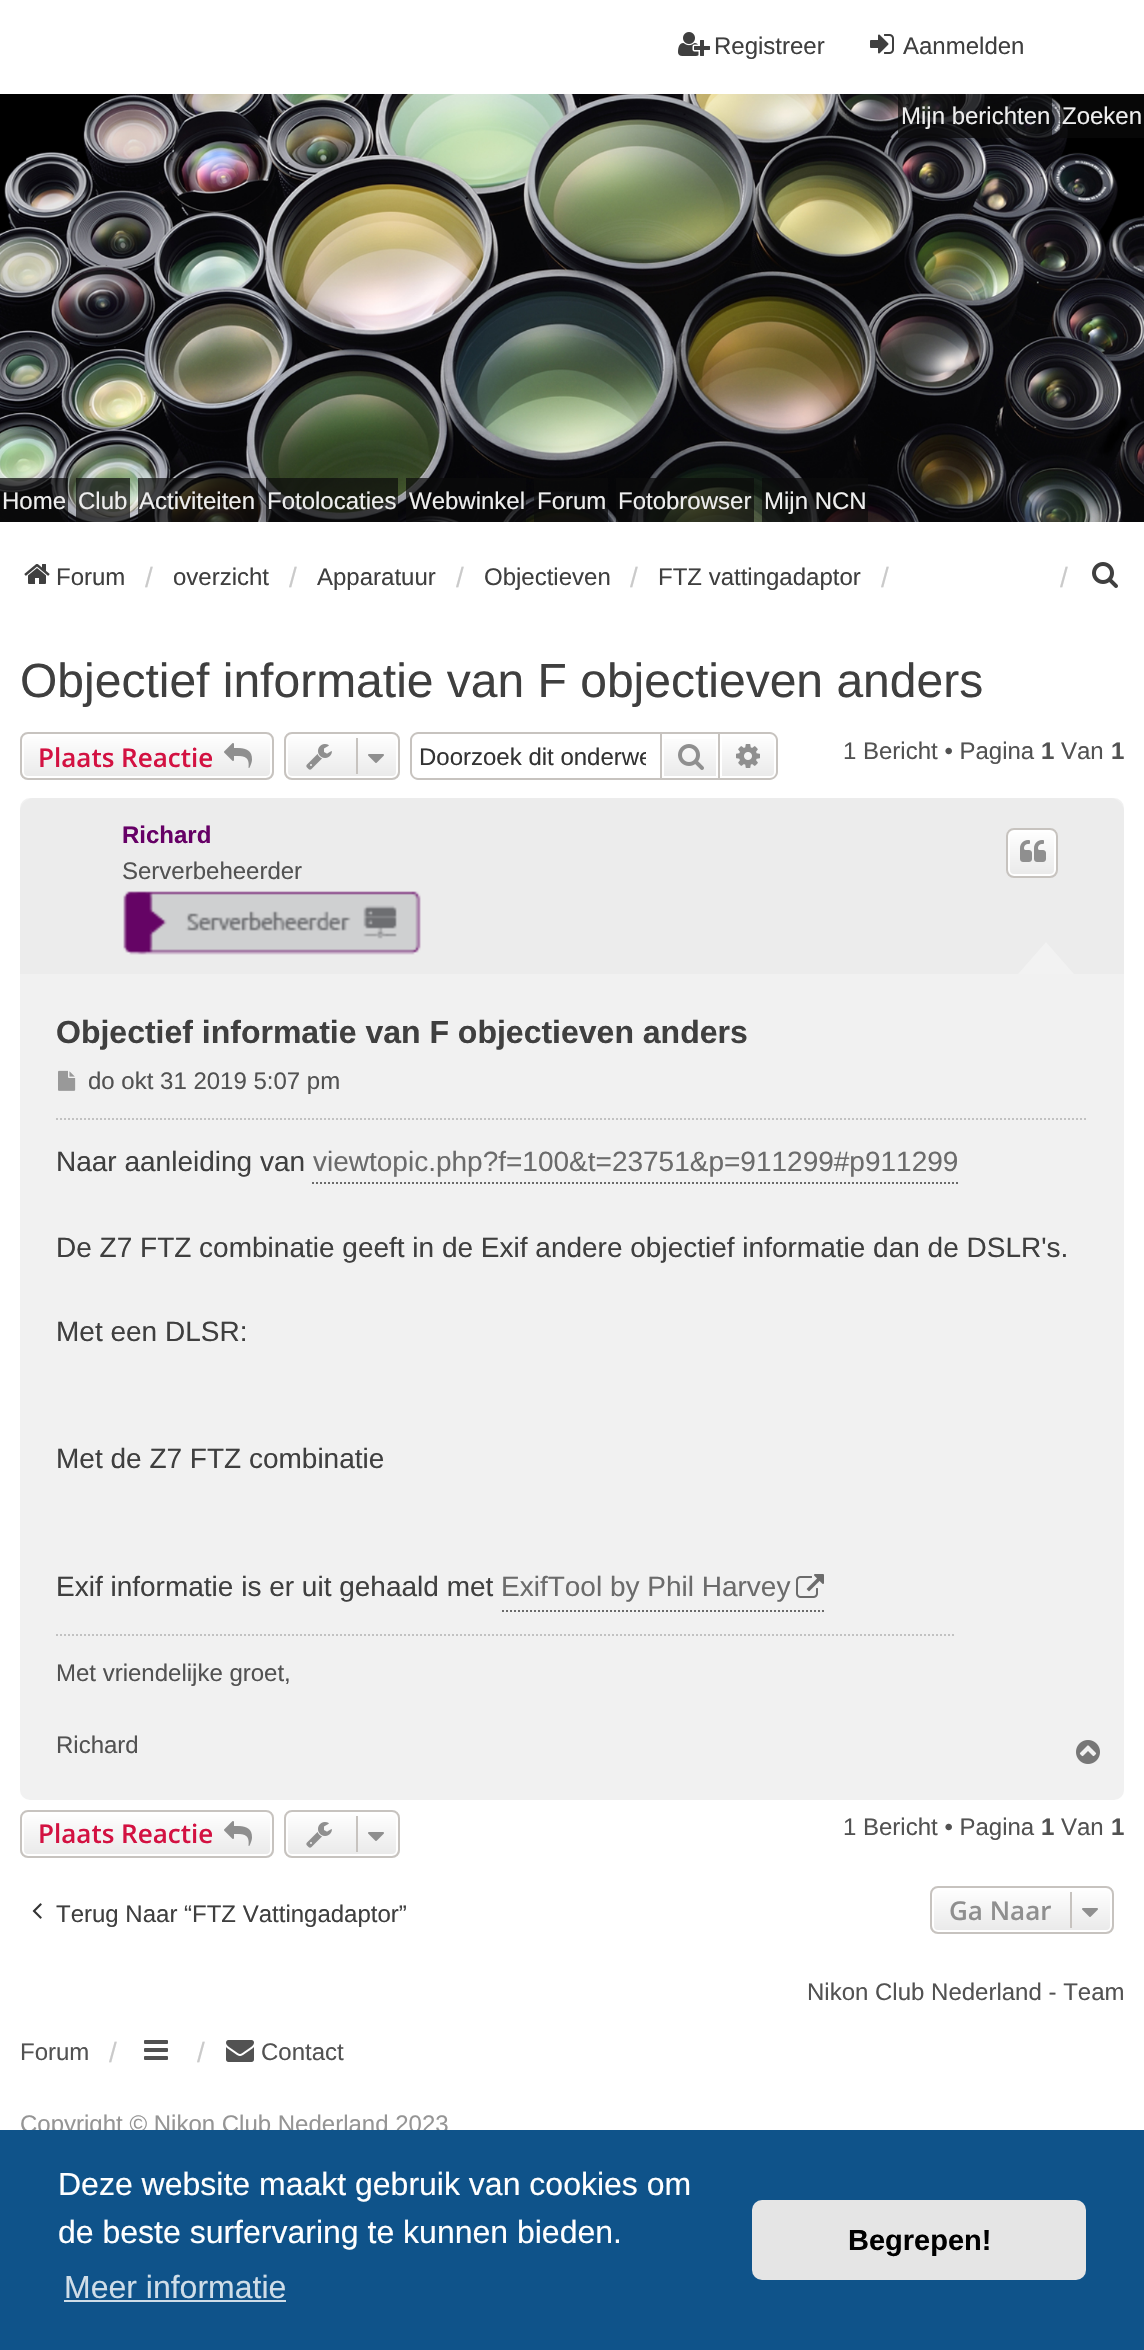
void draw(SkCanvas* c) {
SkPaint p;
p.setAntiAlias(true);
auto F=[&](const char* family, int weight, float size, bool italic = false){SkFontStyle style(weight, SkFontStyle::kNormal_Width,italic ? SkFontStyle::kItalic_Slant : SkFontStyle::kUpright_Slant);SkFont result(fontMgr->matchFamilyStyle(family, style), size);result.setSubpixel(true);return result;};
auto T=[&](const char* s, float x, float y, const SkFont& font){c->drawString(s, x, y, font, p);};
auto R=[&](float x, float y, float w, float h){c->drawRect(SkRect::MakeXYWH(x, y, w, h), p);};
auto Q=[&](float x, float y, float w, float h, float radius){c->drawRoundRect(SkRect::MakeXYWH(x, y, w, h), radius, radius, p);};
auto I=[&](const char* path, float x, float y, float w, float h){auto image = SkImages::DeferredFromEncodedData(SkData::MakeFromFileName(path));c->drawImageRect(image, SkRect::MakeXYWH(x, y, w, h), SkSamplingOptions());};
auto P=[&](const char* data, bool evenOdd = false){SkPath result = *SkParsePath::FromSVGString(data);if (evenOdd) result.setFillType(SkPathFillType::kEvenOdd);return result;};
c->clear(0xffffffff);
I("1.png",678,32,32,24);
auto f1 = F("Liberation Sans",400,24);
p.setColor(0xff3f3f3f);
T("Registreer",714,54,f1);
I("2.png",870,34,24,20);
T("Aanmelden",903,54,f1);
I("3.png",0,94,1144,428);
p.setColor(0xb30a0a0a);
R(898,94,154,44);
p.setColor(0xffeeeeee);
T("Mijn berichten",901,124,f1);
p.setColor(0xb30a0a0a);
R(1060,94,84,44);
p.setColor(0xffeeeeee);
T("Zoeken",1062,124,f1);
p.setColor(0xb30a0a0a);
R(0,478,68,44);
p.setColor(0xffeeeeee);
T("Home",2,509,f1);
p.setColor(0xb30a0a0a);
R(76,478,54,44);
p.setColor(0xffeeeeee);
T("Club",78,509,f1);
p.setColor(0xb30a0a0a);
R(138,478,120,44);
p.setColor(0xffeeeeee);
T("Activiteiten",139,509,f1);
p.setColor(0xb30a0a0a);
R(266,478,132,44);
p.setColor(0xffeeeeee);
T("Fotolocaties",267,509,f1);
p.setColor(0xb30a0a0a);
R(406,478,120,44);
p.setColor(0xffeeeeee);
T("Webwinkel",409,509,f1);
p.setColor(0xb30a0a0a);
R(534,478,74,44);
p.setColor(0xffeeeeee);
T("Forum",537,509,f1);
p.setColor(0xb30a0a0a);
R(616,478,138,44);
p.setColor(0xffeeeeee);
T("Fotobrowser",618,509,f1);
p.setColor(0xb30a0a0a);
R(762,478,106,44);
p.setColor(0xffeeeeee);
T("Mijn NCN",764,509,f1);
I("4.png",24,564,26,20);
p.setColor(0xff3f3f3f);
T("Forum",56,585,f1);
auto f2 = F("Liberation Sans",400,28);
p.setColor(0xffcacaca);
T("/",145,587,f2);
p.setColor(0xff3f3f3f);
T("overzicht",173,585,f1);
p.setColor(0xffcacaca);
T("/",289,587,f2);
p.setColor(0xff3f3f3f);
T("Apparatuur",317,585,f1);
p.setColor(0xffcacaca);
T("/",456,587,f2);
p.setColor(0xff3f3f3f);
T("Objectieven",484,585,f1);
p.setColor(0xffcacaca);
T("/",630,587,f2);
p.setColor(0xff3f3f3f);
T("FTZ vattingadaptor",658,585,f1);
p.setColor(0xffcacaca);
T("/",881,587,f2);
T("/",1060,587,f2);
I("5.png",1092,562,26,26);
auto f3 = F("Liberation Sans",400,48);
p.setColor(0xff3f3f3f);
T("Objectief informatie van F objectieven anders",20,697,f3);
c->save();
c->clipPath(P("M28 732h238c4.5 0 8 3.5 8 8v32c0 4.5-3.5 8-8 8h-238c-4.5 0-8-3.5-8-8v-32c0-4.5 3.5-8 8-8z"),true);
{
const SkColor colors[] = {0xffffffff,0xffe9e9e9};
const float stops[] = {0,1};
const SkPoint ends[] = {{147,734}, {147,778}};
p.setShader(SkGradientShader::MakeLinear(ends, colors, stops, 2, SkTileMode::kClamp));
p.setAlpha(255);
}
R(20,734,254,44);
c->restore();
p.setStroke(true);
p.setStrokeWidth(2);
p.setShader(nullptr);
p.setColor(0xffffffff);
c->drawRoundRect(SkRect::MakeXYWH(23,735,248,42),5,5,p);
p.setColor(0xffc7c3bf);
c->drawRoundRect(SkRect::MakeXYWH(21,733,252,46),7,7,p);
auto f4 = F("Open Sans",600,26);
p.setStroke(false);
p.setColor(0xffd31141);
T("Plaats Reactie",38,767,f4);
I("6.png",224,743,28,25);
c->save();
c->clipPath(P("M292 732h100c4.5 0 8 3.5 8 8v32c0 4.5-3.5 8-8 8h-100c-4.5 0-8-3.5-8-8v-32c0-4.5 3.5-8 8-8z"),true);
{
const SkColor colors[] = {0xffffffff,0xffe9e9e9};
const float stops[] = {0,1};
const SkPoint ends[] = {{342,734}, {342,778}};
p.setShader(SkGradientShader::MakeLinear(ends, colors, stops, 2, SkTileMode::kClamp));
p.setAlpha(255);
}
R(284,734,116,44);
c->restore();
p.setStroke(true);
p.setShader(nullptr);
p.setColor(0xffffffff);
c->drawRoundRect(SkRect::MakeXYWH(287,735,110,42),5,5,p);
p.setColor(0xffc7c3bf);
c->drawRoundRect(SkRect::MakeXYWH(285,733,114,46),7,7,p);
I("7.png",306,744,26,26);
p.setStroke(false);
R(356,738,2,36);
I("8.png",368,754,16,9);
c->drawPath(P("M418 732h242v48h-242c-4 0-8-4-8-8v-32c0-4 4-8 8-8zm0 2h242v44h-242c-3 0-6-3-6-6v-32c0-3 3-6 6-6z",true),p);
c->save();
c->clipRect(SkRect::MakeXYWH(418,742,228,28));
p.setColor(0xff333333);
T("Doorzoek dit onderwe",419,765,f1);
c->restore();
{
const SkColor colors[] = {0xffffffff,0xffe9e9e9};
const float stops[] = {0,1};
const SkPoint ends[] = {{690,734}, {690,778}};
p.setShader(SkGradientShader::MakeLinear(ends, colors, stops, 2, SkTileMode::kClamp));
p.setAlpha(255);
}
R(664,739,52,37);
p.setStroke(true);
p.setShader(nullptr);
p.setColor(0xffc7c3bf);
c->drawRect(SkRect::MakeXYWH(661,733,58,46),p);
I("9.png",678,744,26,26);
p.setStroke(false);
{
const SkColor colors[] = {0xffffffff,0xffe9e9e9};
const float stops[] = {0,1};
const SkPoint ends[] = {{748,734}, {748,778}};
p.setShader(SkGradientShader::MakeLinear(ends, colors, stops, 2, SkTileMode::kClamp));
p.setAlpha(255);
}
c->drawPath(P("M721 735h49c3 0 5 2 5 5v32c0 3-2 5-5 5h-49z"),p);
p.setStroke(true);
p.setShader(nullptr);
p.setColor(0xffffffff);
c->drawPath(P("M721 735h49c3 0 5 2 5 5v32c0 3-2 5-5 5h-49z"),p);
p.setStroke(false);
p.setColor(0xffc7c3bf);
c->drawPath(P("M720 732h50c4 0 8 4 8 8v32c0 4-4 8-8 8h-50zm0 2h50c3 0 6 3 6 6v32c0 3-3 6-6 6h-50z",true),p);
I("10.png",736,744,24,24);
p.setColor(0xff525252);
T("1 Bericht • Pagina",843,759,f1);
auto f5 = F("Liberation Sans",700,24);
T("1",1041,759,f5);
T("Van",1061,759,f1);
T("1",1111,759,f5);
p.setColor(0xfff1f1f1);
Q(20,798,1104,1002,10);
p.setColor(0xffececec);
c->drawPath(P("M34 798h1076c7.5 0 14 6.5 14 14v162h-1104v-162c0-7.5 6.5-14 14-14z"),p);
p.setColor(0xff660066);
T("Richard",122,843,f5);
p.setColor(0xff525252);
T("Serverbeheerder",122,879,f1);
I("11.png",123,891,298,64);
p.setColor(0xfff2f2f2);
c->drawPath(P("M1074 974h-56l28-32z"),p);
c->save();
c->clipPath(P("M1014 828h36c4.5 0 8 3.5 8 8v34c0 4.5-3.5 8-8 8h-36c-4.5 0-8-3.5-8-8v-34c0-4.5 3.5-8 8-8z"),true);
{
const SkColor colors[] = {0xffffffff,0xffe9e9e9};
const float stops[] = {0,1};
const SkPoint ends[] = {{1032,830}, {1032,876}};
p.setShader(SkGradientShader::MakeLinear(ends, colors, stops, 2, SkTileMode::kClamp));
p.setAlpha(255);
}
R(1006,830,52,46);
c->restore();
p.setStroke(true);
p.setShader(nullptr);
p.setColor(0xffffffff);
c->drawRoundRect(SkRect::MakeXYWH(1009,831,46,44),5,5,p);
p.setColor(0xffc7c3bf);
c->drawRoundRect(SkRect::MakeXYWH(1007,829,50,48),7,7,p);
I("12.png",1020,840,26,22);
auto f6 = F("Liberation Sans",700,32);
p.setStroke(false);
p.setColor(0xff3f3f3f);
T("Objectief informatie van F objectieven anders",56,1043,f6);
p.setStroke(true);
p.setColor(0xffc2c2c2);
p.setPathEffect(SkDashPathEffect::Make({{2,2}}, 0));
c->drawPath(P("M56 1119h1032"),p);
p.setPathEffect(nullptr);
I("13.png",58,1070,18,21);
p.setStroke(false);
p.setColor(0xff525252);
T("do okt 31 2019 5:07 pm",88,1089,f1);
p.setColor(0xff3f3f3f);
T("Naar aanleiding van",56,1171,f2);
p.setStroke(true);
p.setColor(0xff6b6b6b);
p.setPathEffect(SkDashPathEffect::Make({{2,2}}, 0));
c->drawPath(P("M312 1183h646"),p);
p.setPathEffect(nullptr);
p.setStroke(false);
T("viewtopic.php?f=100&t=23751&p=911299#p911299",313,1171,f2);
p.setColor(0xff3f3f3f);
T("De Z7 FTZ combinatie geeft in de Exif andere objectief informatie dan de DSLR's.",56,1257,f2);
T("Met een DLSR:",56,1341,f2);
T("Met de Z7 FTZ combinatie",56,1468,f2);
T("Exif informatie is er uit gehaald met",56,1596,f2);
p.setStroke(true);
p.setColor(0xff6b6b6b);
p.setPathEffect(SkDashPathEffect::Make({{2,2}}, 0));
c->drawPath(P("M502 1611h322"),p);
p.setPathEffect(nullptr);
p.setStroke(false);
T("ExifTool by Phil Harvey",501,1596,f2);
I("14.png",796,1574,28,24);
p.setStroke(true);
p.setColor(0xffc2c2c2);
p.setPathEffect(SkDashPathEffect::Make({{2,2}}, 0));
c->drawPath(P("M56 1635h898"),p);
p.setPathEffect(nullptr);
p.setStroke(false);
p.setColor(0xff525252);
T("Met vriendelijke groet,",56,1681,f1);
T("Richard",56,1753,f1);
I("15.png",1076,1740,24,24);
c->save();
c->clipPath(P("M28 1810h238c4.5 0 8 3.5 8 8v32c0 4.5-3.5 8-8 8h-238c-4.5 0-8-3.5-8-8v-32c0-4.5 3.5-8 8-8z"),true);
{
const SkColor colors[] = {0xffffffff,0xffe9e9e9};
const float stops[] = {0,1};
const SkPoint ends[] = {{147,1812}, {147,1856}};
p.setShader(SkGradientShader::MakeLinear(ends, colors, stops, 2, SkTileMode::kClamp));
p.setAlpha(255);
}
R(20,1812,254,44);
c->restore();
p.setStroke(true);
p.setShader(nullptr);
p.setColor(0xffffffff);
c->drawRoundRect(SkRect::MakeXYWH(23,1813,248,42),5,5,p);
p.setColor(0xffc7c3bf);
c->drawRoundRect(SkRect::MakeXYWH(21,1811,252,46),7,7,p);
p.setStroke(false);
p.setColor(0xffd31141);
T("Plaats Reactie",38,1843,f4);
I("6.png",224,1821,28,25);
c->save();
c->clipPath(P("M292 1810h100c4.5 0 8 3.5 8 8v32c0 4.5-3.5 8-8 8h-100c-4.5 0-8-3.5-8-8v-32c0-4.5 3.5-8 8-8z"),true);
{
const SkColor colors[] = {0xffffffff,0xffe9e9e9};
const float stops[] = {0,1};
const SkPoint ends[] = {{342,1812}, {342,1856}};
p.setShader(SkGradientShader::MakeLinear(ends, colors, stops, 2, SkTileMode::kClamp));
p.setAlpha(255);
}
R(284,1812,116,44);
c->restore();
p.setStroke(true);
p.setShader(nullptr);
p.setColor(0xffffffff);
c->drawRoundRect(SkRect::MakeXYWH(287,1813,110,42),5,5,p);
p.setColor(0xffc7c3bf);
c->drawRoundRect(SkRect::MakeXYWH(285,1811,114,46),7,7,p);
I("7.png",306,1822,26,26);
p.setStroke(false);
R(356,1816,2,36);
I("8.png",368,1832,16,9);
p.setColor(0xff525252);
T("1 Bericht • Pagina",843,1835,f1);
T("1",1041,1835,f5);
T("Van",1061,1835,f1);
T("1",1111,1835,f5);
I("16.png",32,1903,10,16);
p.setColor(0xff3f3f3f);
T("Terug Naar “FTZ Vattingadaptor”",56,1922,f1);
c->save();
c->clipPath(P("M938 1886h168c4.5 0 8 3.5 8 8v32c0 4.5-3.5 8-8 8h-168c-4.5 0-8-3.5-8-8v-32c0-4.5 3.5-8 8-8z"),true);
{
const SkColor colors[] = {0xffffffff,0xffe9e9e9};
const float stops[] = {0,1};
const SkPoint ends[] = {{1022,1888}, {1022,1932}};
p.setShader(SkGradientShader::MakeLinear(ends, colors, stops, 2, SkTileMode::kClamp));
p.setAlpha(255);
}
R(930,1888,184,44);
c->restore();
p.setStroke(true);
p.setShader(nullptr);
p.setColor(0xffffffff);
c->drawRoundRect(SkRect::MakeXYWH(933,1889,178,42),5,5,p);
p.setColor(0xffc7c3bf);
c->drawRoundRect(SkRect::MakeXYWH(931,1887,182,46),7,7,p);
p.setStroke(false);
p.setColor(0xff8f8f8f);
T("Ga Naar",949,1920,f4);
p.setColor(0xffc7c3bf);
R(1070,1892,2,36);
I("8.png",1082,1908,16,9);
p.setColor(0xff525252);
T("Nikon Club Nederland - Team",807,2000,f1);
T("Forum",20,2060,f1);
p.setColor(0xffcacaca);
T("/",109,2062,f2);
I("17.png",144,2040,24,20);
T("/",197,2062,f2);
I("18.png",226,2040,28,22);
p.setColor(0xff525252);
T("Contact",261,2060,f1);
p.setColor(0xff959595);
T("Copyright © Nikon Club Nederland 2023",20,2132,f1);
p.setColor(0xff0f538a);
R(0,2130,1144,220);
auto f7 = F("Liberation Sans",400,32);
p.setColor(0xffffffff);
T("Deze website maakt gebruik van cookies om",58,2195,f7);
T("de beste surfervaring te kunnen bieden.",58,2243,f7);
p.setColor(0xffcfdde8);
T("Meer informatie",64,2298,f7);
R(64,2300,222,2);
p.setColor(0xffe5e5e5);
Q(752,2200,334,80,10);
auto f8 = F("Liberation Sans",700,29);
p.setColor(0xff000000);
T("Begrepen!",848,2250,f8);
}
